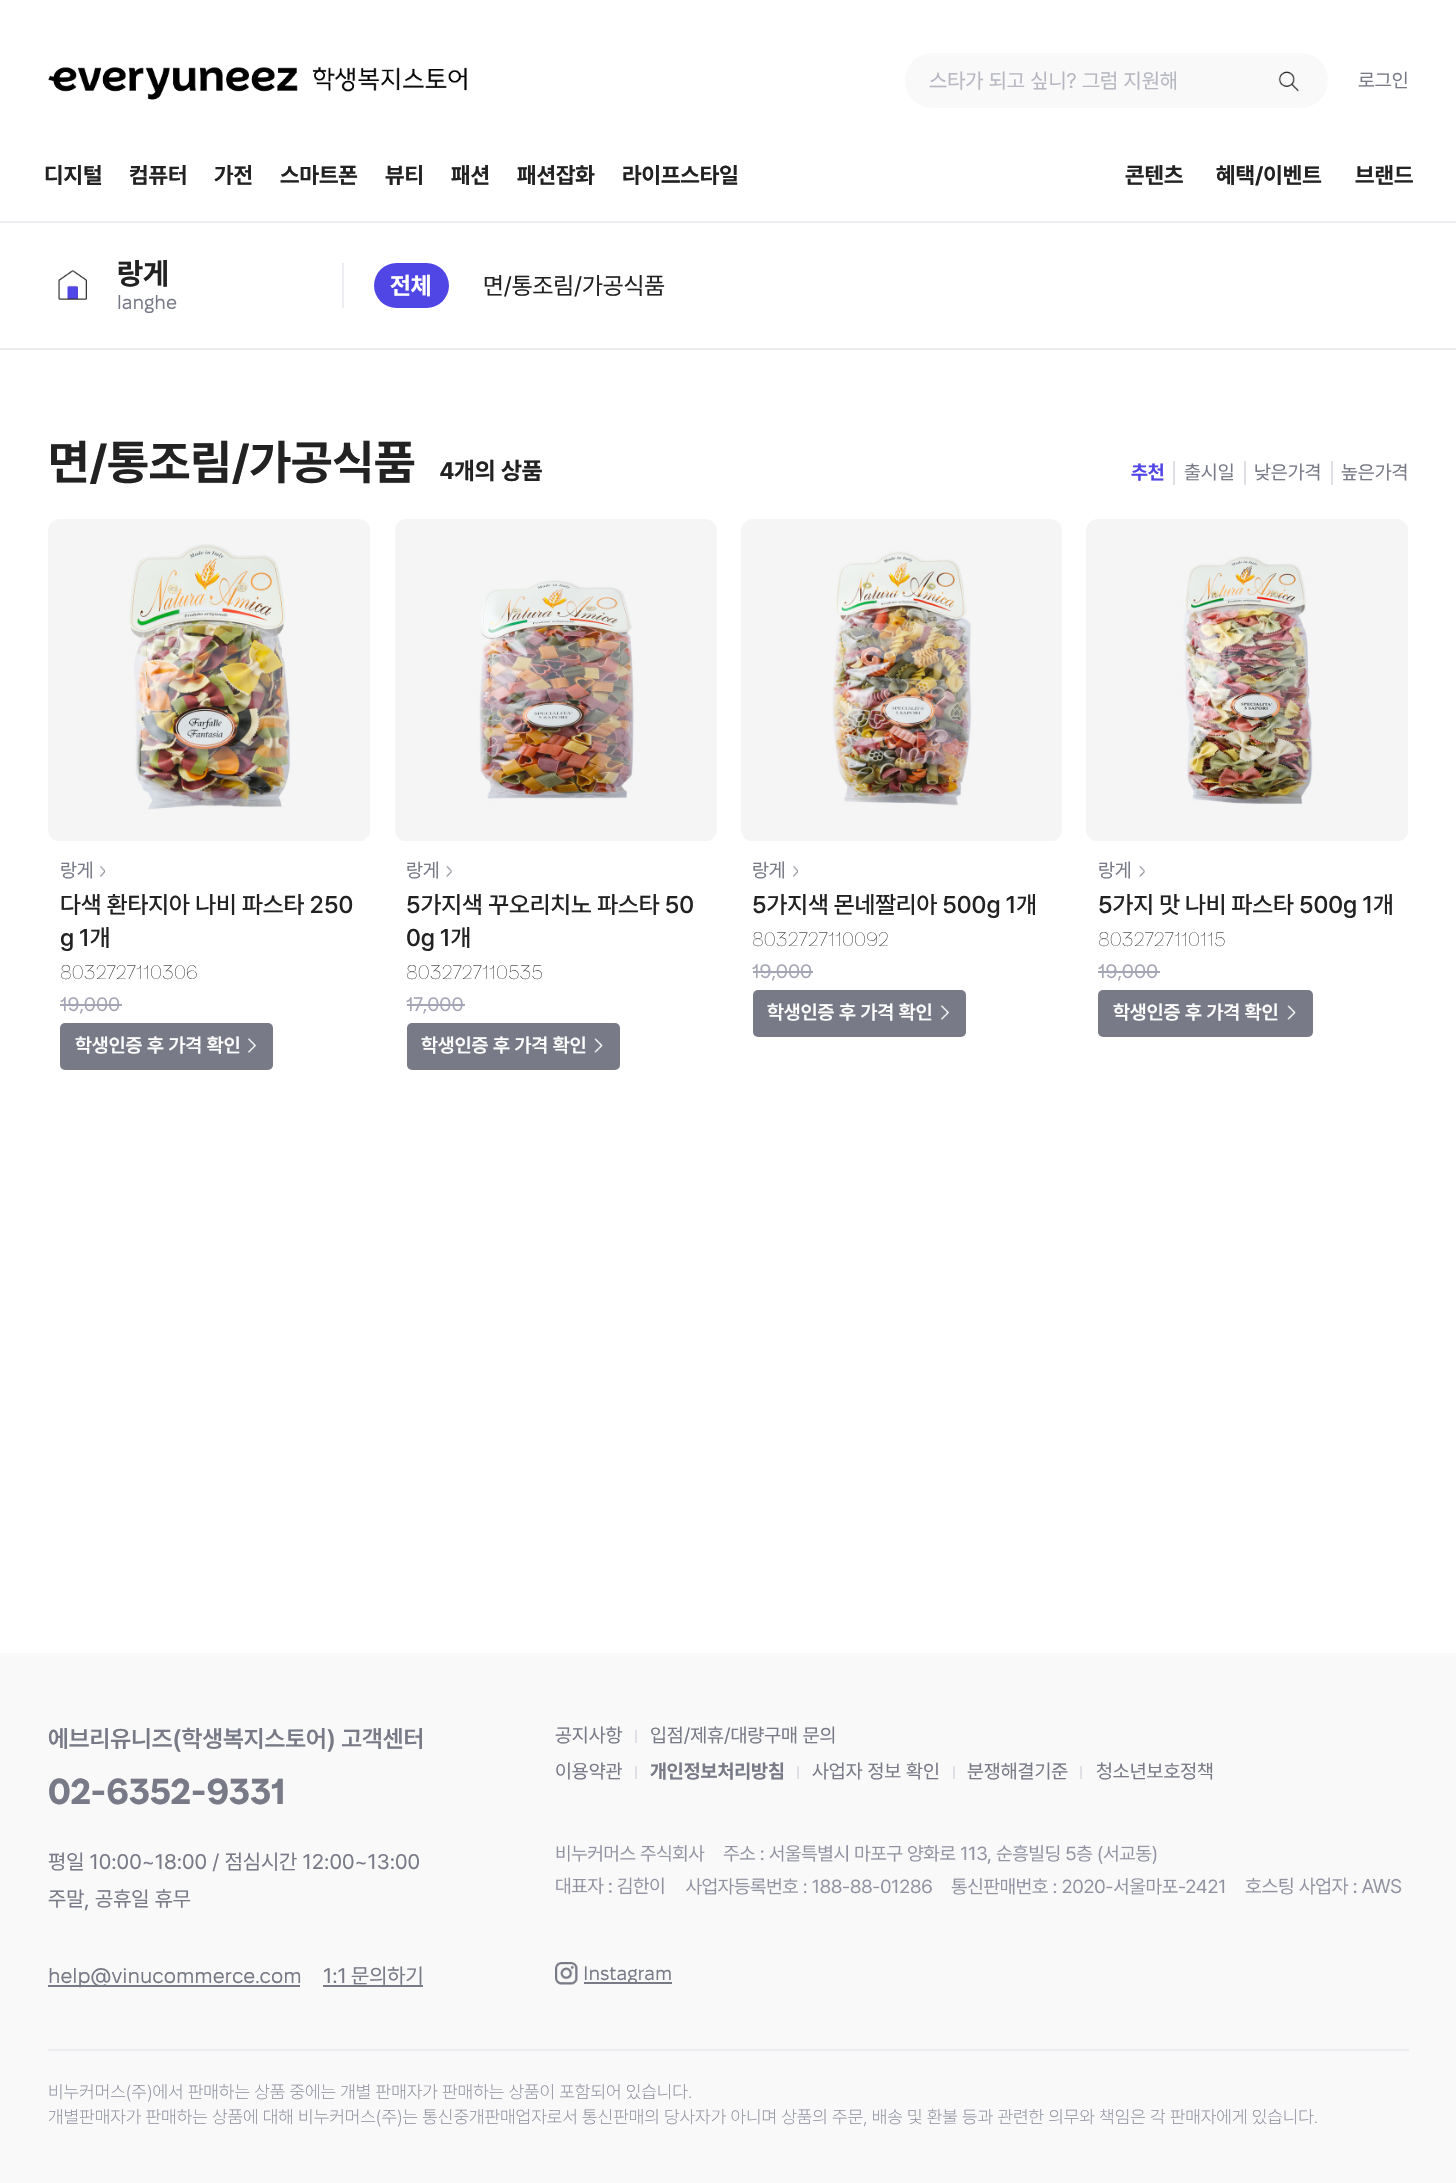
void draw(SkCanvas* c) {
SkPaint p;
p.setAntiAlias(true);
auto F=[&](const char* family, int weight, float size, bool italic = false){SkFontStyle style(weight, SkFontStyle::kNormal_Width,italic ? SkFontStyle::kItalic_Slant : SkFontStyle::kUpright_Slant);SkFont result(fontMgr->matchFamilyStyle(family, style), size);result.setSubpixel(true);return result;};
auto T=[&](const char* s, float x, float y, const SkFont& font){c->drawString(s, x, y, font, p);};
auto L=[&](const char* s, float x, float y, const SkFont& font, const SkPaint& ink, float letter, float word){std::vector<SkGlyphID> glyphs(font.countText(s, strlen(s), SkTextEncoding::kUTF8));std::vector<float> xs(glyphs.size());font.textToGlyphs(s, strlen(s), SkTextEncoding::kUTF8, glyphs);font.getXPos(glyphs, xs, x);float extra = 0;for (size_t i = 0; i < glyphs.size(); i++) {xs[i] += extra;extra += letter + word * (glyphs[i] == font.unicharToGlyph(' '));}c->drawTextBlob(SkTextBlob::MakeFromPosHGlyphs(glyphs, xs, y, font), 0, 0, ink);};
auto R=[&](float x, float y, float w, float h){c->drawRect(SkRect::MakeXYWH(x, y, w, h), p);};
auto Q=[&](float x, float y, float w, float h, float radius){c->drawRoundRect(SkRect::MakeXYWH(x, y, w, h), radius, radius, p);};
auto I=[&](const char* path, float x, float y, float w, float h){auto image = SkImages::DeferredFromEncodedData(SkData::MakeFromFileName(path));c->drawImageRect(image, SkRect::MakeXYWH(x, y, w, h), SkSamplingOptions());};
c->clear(0xffffffff);
I("1.png",48,66,419,34);
p.setColor(0xfff9f9fa);
Q(905,53,423,55,27.5);
auto f1 = F("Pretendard",400,21);
p.setColor(0xffb7b8c2);
T("스타가 되고 싶니? 그럼 지원해",929,88,f1);
I("2.png",1278,71,21,21);
auto f2 = F("Pretendard",400,19.5);
p.setColor(0xff787a87);
T("로그인",1358,87,f2);
p.setColor(0xffecedf1);
R(0,221,1456,2);
auto f3 = F("Pretendard",700,22.5);
p.setColor(0xff222222);
T("디지털",44,183,f3);
T("컴퓨터",129,183,f3);
T("가전",214,183,f3);
T("스마트폰",280,183,f3);
T("뷰티",385,183,f3);
T("패션",451,183,f3);
T("패션잡화",517,183,f3);
T("라이프스타일",622,183,f3);
T("콘텐츠",1125,183,f3);
T("혜택/이벤트",1216,183,f3);
T("브랜드",1355,183,f3);
p.setColor(0xffecedf1);
R(0,348,1456,2);
I("3.png",58,270,29,30);
auto f4 = F("Pretendard",700,30);
p.setColor(0xff222222);
T("랑게",117,284,f4);
auto f5 = F("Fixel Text",400,19.5);
p.setColor(0xff787a87);
T("langhe",117,309,f5);
p.setColor(0xffecedf1);
R(342,263,2,45);
p.setColor(0xff4f46e5);
Q(374,263,75,45,22.5);
auto f6 = F("Pretendard",700,24);
p.setColor(0xffffffff);
T("전체",390,294,f6);
auto f7 = F("Pretendard",400,24);
p.setColor(0xff222222);
T("면/통조림/가공식품",483,294,f7);
auto f8 = F("Pretendard",700,48);
T("면/통조림/가공식품",48,479,f8);
auto f9 = F("Fixel Text",700,24);
T("4",440,479,f9);
T("개의 상품",454,479,f6);
auto f10 = F("Pretendard",700,19.5);
p.setColor(0xff4f46e5);
T("추천",1131,479,f10);
p.setColor(0xffdfe0e5);
R(1173,461,2,24);
p.setColor(0xff787a87);
T("출시일",1184,479,f2);
p.setColor(0xffdfe0e5);
R(1244,461,2,24);
p.setColor(0xff787a87);
T("낮은가격",1254,479,f2);
p.setColor(0xffdfe0e5);
R(1331,461,2,24);
p.setColor(0xff787a87);
T("높은가격",1341,479,f2);
I("4.png",48,519,322,322);
T("랑게",60,877,f2);
I("5.png",99,865,6,12);
auto f11 = F("Pretendard",500,24);
p.setColor(0xff222222);
L("다색 환타지아 나비 파스타 250",60,913,f11,p,0,-.5);
L("g 1개",60,946,f11,p,0,-1);
auto f12 = F("Fixel Text",100,19.5);
T("8032727110306",60,979,f12);
p.setColor(0xffa4a6b5);
T("19,000",60,1011,f5);
R(60,1004,62,2);
p.setColor(0xff787a87);
Q(60,1023,213,47,5);
auto f13 = F("Pretendard",600,19.5);
p.setColor(0xffffffff);
T("학생인증 후 가격 확인",75,1052,f13);
I("6.png",247,1038,10,15);
I("7.png",395,519,322,322);
p.setColor(0xff787a87);
T("랑게",406,877,f2);
I("8.png",446,865,6,12);
p.setColor(0xff222222);
L("5가지색 꾸오리치노 파스타 50",406,913,f11,p,0,-.5);
L("0g 1개",406,946,f11,p,0,-1);
T("8032727110535",406,979,f12);
p.setColor(0xffa4a6b5);
T("17,000",406,1011,f5);
R(407,1004,58,2);
p.setColor(0xff787a87);
Q(407,1023,213,47,5);
p.setColor(0xffffffff);
T("학생인증 후 가격 확인",421,1052,f13);
I("9.png",594,1038,9,15);
I("10.png",741,519,321,322);
p.setColor(0xff787a87);
T("랑게",752,877,f2);
I("11.png",792,865,6,12);
p.setColor(0xff222222);
L("5가지색 몬네짤리아 500g 1개",752,913,f11,p,0,-1);
T("8032727110092",752,946,f12);
p.setColor(0xffa4a6b5);
T("19,000",752,978,f5);
R(753,971,60,2);
p.setColor(0xff787a87);
Q(753,990,213,47,5);
p.setColor(0xffffffff);
T("학생인증 후 가격 확인",767,1019,f13);
I("6.png",940,1005,10,15);
I("12.png",1086,519,322,322);
p.setColor(0xff787a87);
T("랑게",1098,877,f2);
I("8.png",1139,865,6,12);
p.setColor(0xff222222);
L("5가지 맛 나비 파스타 500g 1개",1098,913,f11,p,0,-.75);
T("8032727110115",1098,946,f12);
p.setColor(0xffa4a6b5);
T("19,000",1098,978,f5);
R(1098,971,62,2);
p.setColor(0xff787a87);
Q(1098,990,215,47,5);
p.setColor(0xffffffff);
T("학생인증 후 가격 확인",1113,1019,f13);
I("9.png",1287,1005,9,15);
p.setColor(0xfff9f9f9);
R(0,1653,1456,530);
auto f14 = F("Pretendard",600,24);
p.setColor(0xff787a87);
T("에브리유니즈(학생복지스토어) 고객센터",48,1747,f14);
auto f15 = F("Fixel Text",700,36);
T("02-6352-9331",48,1804,f15);
T("평일 10:00~18:00 / 점심시간 12:00~13:00",48,1869,f1);
T("주말, 공휴일 휴무",48,1906,f1);
R(48,1985,252,2);
auto f16 = F("Fixel Text",400,21);
T("help@vinucommerce.com",48,1983,f16);
L("1:1 문의하기",323,1983,f1,p,0,-1);
R(323,1985,100,2);
T("공지사항",555,1742,f2);
p.setColor(0xffdfe0e5);
R(635,1730,2,13);
p.setColor(0xff787a87);
T("입점/제휴/대량구매 문의",650,1742,f2);
T("이용약관",555,1778,f2);
p.setColor(0xffdfe0e5);
R(635,1766,2,13);
p.setColor(0xff787a87);
T("개인정보처리방침",650,1778,f10);
p.setColor(0xffdfe0e5);
R(797,1766,2,13);
p.setColor(0xff787a87);
T("사업자 정보 확인",812,1778,f2);
p.setColor(0xffdfe0e5);
R(953,1766,2,13);
p.setColor(0xff787a87);
T("분쟁해결기준",967,1778,f2);
p.setColor(0xffdfe0e5);
R(1080,1766,2,13);
p.setColor(0xff787a87);
T("청소년보호정책",1096,1778,f2);
I("13.png",556,1845,149,17);
I("14.png",723,1844,434,20);
I("15.png",556,1877,108,18);
I("16.png",686,1878,246,17);
I("17.png",951,1878,274,17);
I("18.png",1245,1877,157,18);
I("19.png",555,1962,23,23);
R(584,1982,88,2);
T("Instagram",583,1980,f5);
p.setColor(0xffecedf1);
R(48,2049,1361,2);
auto f17 = F("Pretendard",200,18);
p.setColor(0xff9092a1);
T("비누커머스(주)에서 판매하는 상품 중에는 개별 판매자가 판매하는 상품이 포함되어 있습니다.",48,2098,f17);
T("개별판매자가 판매하는 상품에 대해 비누커머스(주)는 통신중개판매업자로서 통신판매의 당사자가 아니며 상품의 주문, 배송 및 환불 등과 관련한 의무와 책임은 각 판매자에게 있습니다.",48,2123,f17);
}
